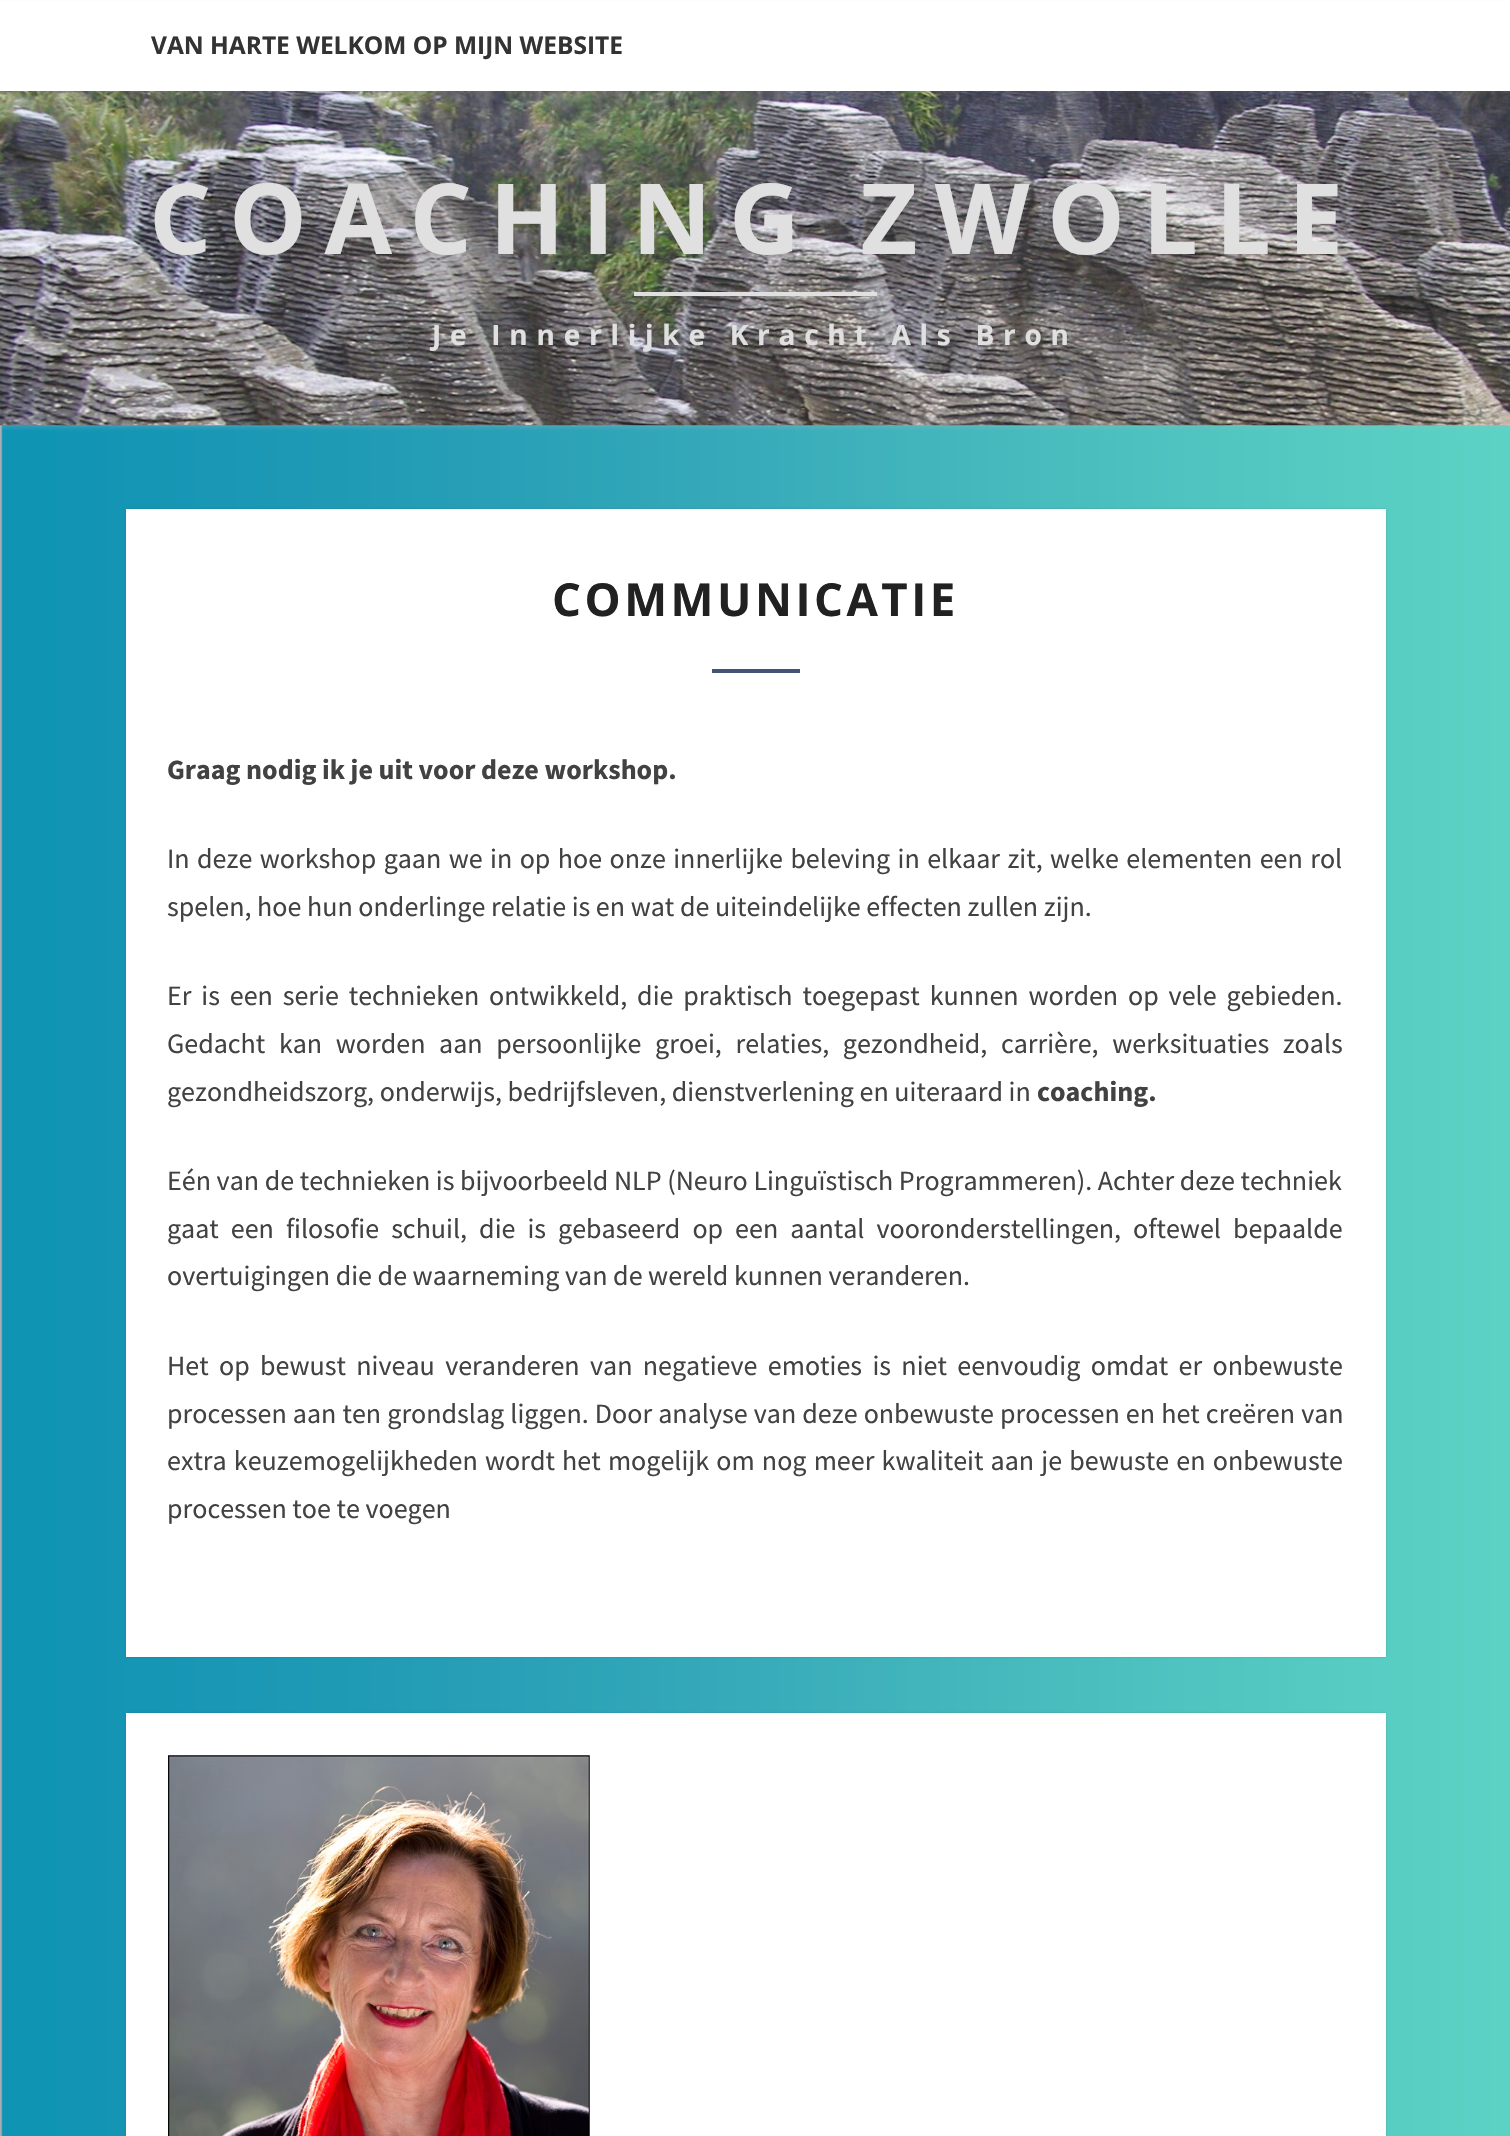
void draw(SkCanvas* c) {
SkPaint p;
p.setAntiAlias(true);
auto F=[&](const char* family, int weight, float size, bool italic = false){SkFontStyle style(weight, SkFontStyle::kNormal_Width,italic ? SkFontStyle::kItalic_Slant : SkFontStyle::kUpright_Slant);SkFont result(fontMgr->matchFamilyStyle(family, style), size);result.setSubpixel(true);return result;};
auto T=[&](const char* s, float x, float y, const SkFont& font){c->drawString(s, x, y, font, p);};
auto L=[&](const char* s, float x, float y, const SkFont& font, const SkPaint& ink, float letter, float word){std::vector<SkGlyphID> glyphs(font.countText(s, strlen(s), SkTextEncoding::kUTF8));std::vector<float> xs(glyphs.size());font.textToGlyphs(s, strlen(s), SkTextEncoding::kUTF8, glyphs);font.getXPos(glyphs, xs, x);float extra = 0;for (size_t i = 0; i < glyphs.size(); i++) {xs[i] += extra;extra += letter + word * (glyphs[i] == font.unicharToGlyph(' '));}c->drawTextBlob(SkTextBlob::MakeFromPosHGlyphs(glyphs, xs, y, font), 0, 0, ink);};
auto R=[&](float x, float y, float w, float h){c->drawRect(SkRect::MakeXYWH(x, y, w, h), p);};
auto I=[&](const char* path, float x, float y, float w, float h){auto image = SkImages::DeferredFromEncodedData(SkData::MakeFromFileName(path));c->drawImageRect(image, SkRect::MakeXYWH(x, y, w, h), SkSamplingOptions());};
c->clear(0xffffffff);
I("1.png",0,425,1510,1711);
p.setColor(0x4db6b6b6);
p.setMaskFilter(SkMaskFilter::MakeBlur(kNormal_SkBlurStyle, 2));
c->drawRect(SkRect::MakeXYWH(-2,89,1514,338),p);
p.setMaskFilter(nullptr);
I("2.png",0,91,1510,335);
p.setColor(0x33646464);
p.setMaskFilter(SkMaskFilter::MakeBlur(kNormal_SkBlurStyle, 1));
c->drawRect(SkRect::MakeXYWH(0,2,1510,91),p);
p.setMaskFilter(nullptr);
p.setColor(0xffffffff);
R(0,1,1510,90);
auto f1 = F("Open Sans",700,24.5);
p.setColor(0xff333333);
T("VAN HARTE WELKOM OP MIJN WEBSITE",151,54,f1);
auto f2 = F("Open Sans",700,98);
p.setColor(0xffe0e0e0);
L("COACHING ZWOLLE",149,254,f2,p,17.5,0);
R(634,292,243,4);
auto f3 = F("Open Sans",700,28);
L("Je Innerlijke Kracht Als Bron",432,345,f3,p,8.75,0);
p.setColor(0x26000000);
p.setMaskFilter(SkMaskFilter::MakeBlur(kNormal_SkBlurStyle, 1));
c->drawRect(SkRect::MakeXYWH(126,509,1260,1148),p);
p.setMaskFilter(nullptr);
p.setColor(0xffffffff);
R(126,509,1260,1148);
auto f4 = F("Open Sans",700,45.5);
p.setColor(0xff212121);
L("COMMUNICATIE",552,616,f4,p,3.5,0);
p.setColor(0xff475277);
R(712,669,88,4);
auto f5 = F("Source Sans Pro",700,28);
p.setColor(0xff424242);
T("Graag nodig ik je uit voor deze workshop.",167,779,f5);
auto f6 = F("Source Sans Pro",400,28);
L("In deze workshop gaan we in op hoe onze innerlijke beleving in elkaar zit, welke elementen een rol",167,868,f6,p,0,1.8);
T("spelen, hoe hun onderlinge relatie is en wat de uiteindelijke effecten zullen zijn.",167,916,f6);
L("Er is een serie technieken ontwikkeld, die praktisch toegepast kunnen worden op vele gebieden.",167,1005,f6,p,0,4.25);
L("Gedacht kan worden aan persoonlijke groei, relaties, gezondheid, carrière, werksituaties zoals",167,1053,f6,p,0,8);
T("gezondheidszorg, onderwijs, bedrijfsleven, dienstverlening en uiteraard in",167,1101,f6);
T("coaching.",1037,1101,f5);
T("Eén van de technieken is bijvoorbeeld NLP (Neuro Linguïstisch Programmeren). Achter deze techniek",167,1190,f6);
L("gaat een filosofie schuil, die is gebaseerd op een aantal vooronderstellingen, oftewel bepaalde",167,1238,f6,p,0,6.4);
T("overtuigingen die de waarneming van de wereld kunnen veranderen.",167,1285,f6);
L("Het op bewust niveau veranderen van negatieve emoties is niet eenvoudig omdat er onbewuste",167,1375,f6,p,0,4.75);
L("processen aan ten grondslag liggen. Door analyse van deze onbewuste processen en het creëren van",167,1423,f6,p,0,.5);
L("extra keuzemogelijkheden wordt het mogelijk om nog meer kwaliteit aan je bewuste en onbewuste",167,1470,f6,p,0,1.6);
T("processen toe te voegen",167,1518,f6);
p.setColor(0x26000000);
p.setMaskFilter(SkMaskFilter::MakeBlur(kNormal_SkBlurStyle, 1));
c->drawRect(SkRect::MakeXYWH(126,1713,1260,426),p);
p.setMaskFilter(nullptr);
p.setColor(0xffffffff);
R(126,1713,1260,423);
I("3.png",168,1755,422,381);
}
